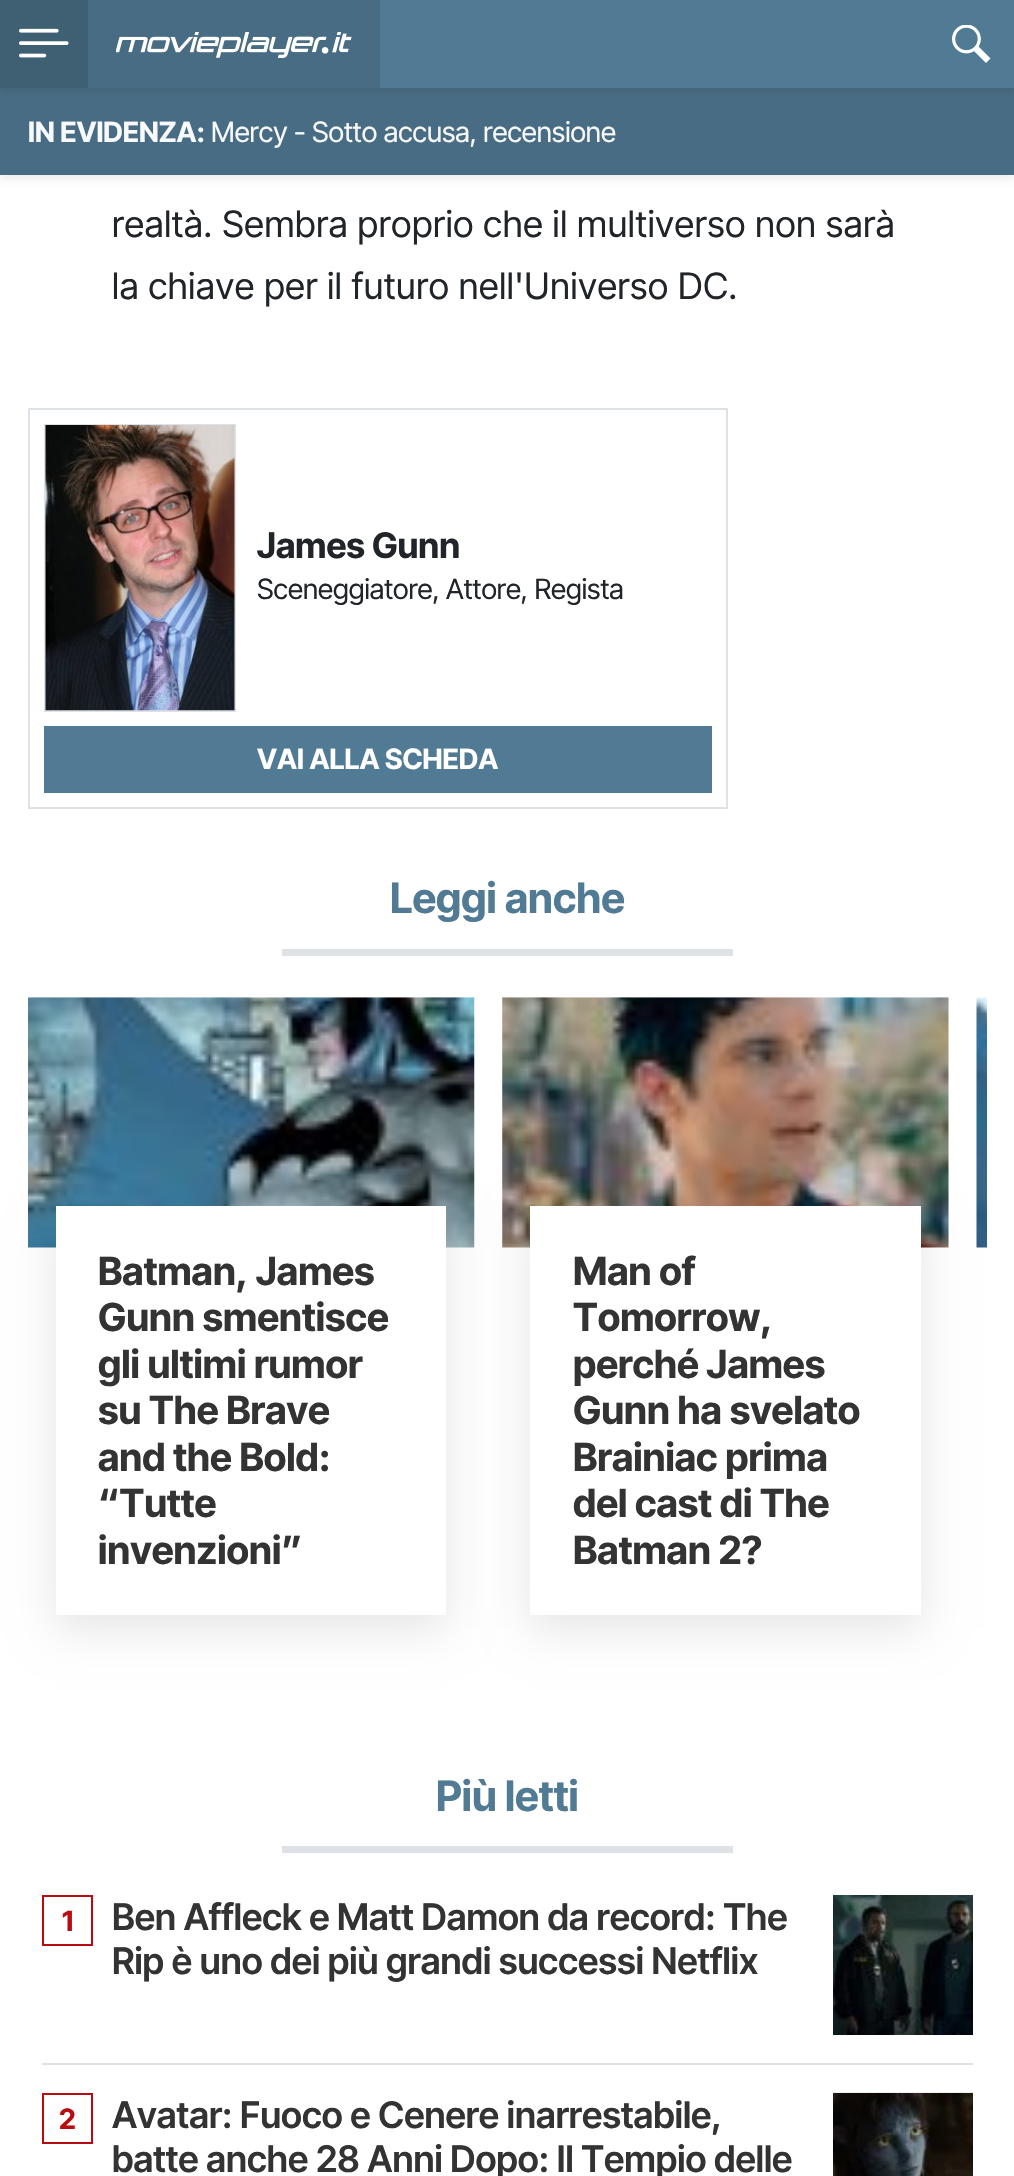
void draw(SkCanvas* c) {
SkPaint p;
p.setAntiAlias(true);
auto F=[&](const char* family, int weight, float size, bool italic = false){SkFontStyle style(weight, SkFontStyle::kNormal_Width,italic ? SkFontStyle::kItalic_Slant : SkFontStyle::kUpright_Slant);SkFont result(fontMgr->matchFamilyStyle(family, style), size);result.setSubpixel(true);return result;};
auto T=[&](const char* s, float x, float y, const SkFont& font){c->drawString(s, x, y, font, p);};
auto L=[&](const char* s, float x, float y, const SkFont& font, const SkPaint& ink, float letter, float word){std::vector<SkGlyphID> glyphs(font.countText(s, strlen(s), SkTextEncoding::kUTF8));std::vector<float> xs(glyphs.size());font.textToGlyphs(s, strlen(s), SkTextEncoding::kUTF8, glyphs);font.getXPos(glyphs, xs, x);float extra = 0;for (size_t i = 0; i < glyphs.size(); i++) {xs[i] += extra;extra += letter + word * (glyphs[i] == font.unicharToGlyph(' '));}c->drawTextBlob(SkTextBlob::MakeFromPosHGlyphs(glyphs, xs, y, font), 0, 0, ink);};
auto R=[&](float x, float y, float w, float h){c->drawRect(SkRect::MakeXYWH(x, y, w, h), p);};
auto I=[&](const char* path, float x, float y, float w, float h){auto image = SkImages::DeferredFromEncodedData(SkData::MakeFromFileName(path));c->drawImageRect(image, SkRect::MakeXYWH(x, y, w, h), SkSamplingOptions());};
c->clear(0xffffffff);
p.setColor(0x12000000);
p.setMaskFilter(SkMaskFilter::MakeBlur(kNormal_SkBlurStyle, 3.5));
c->drawRect(SkRect::MakeXYWH(0,4,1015,175),p);
p.setMaskFilter(nullptr);
p.setColor(0xff486c84);
R(0,88,1014,87);
p.setColor(0x12000000);
p.setMaskFilter(SkMaskFilter::MakeBlur(kNormal_SkBlurStyle, 3.5));
c->drawRect(SkRect::MakeXYWH(0,4,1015,87),p);
p.setMaskFilter(nullptr);
p.setColor(0xff517a94);
R(380,0,634,88);
p.setColor(0xff3f5f73);
R(0,0,88,88);
I("1.png",19,28,50,30);
p.setColor(0xff486c84);
R(88,0,292,88);
I("2.png",116,32,236,26);
I("3.png",952,25,39,38);
auto f1 = F("Inter Tight",700,28);
p.setColor(0xfff8f9fa);
T("IN EVIDENZA:",28,142,f1);
auto f2 = F("Inter Tight",400,28);
T("Mercy - Sotto accusa, recensione",211,142,f2);
auto f3 = F("Inter Tight",400,36.4);
p.setColor(0xff212529);
L("realtà. Sembra proprio che il multiverso non sarà",112,237,f3,p,.7,0);
L("la chiave per il futuro nell'Universo DC.",112,299,f3,p,.7,0);
p.setStroke(true);
p.setStrokeWidth(2);
p.setColor(0xffdee2e6);
c->drawRect(SkRect::MakeXYWH(29,409,698,399),p);
c->drawRect(SkRect::MakeXYWH(45,425,190,286),p);
I("4.png",45,425,190,286);
auto f4 = F("Inter Tight",700,35.25);
p.setStroke(false);
p.setColor(0xff212529);
T("James Gunn",257,558,f4);
T("Sceneggiatore, Attore, Regista",257,599,f2);
p.setColor(0xff517a94);
R(44,726,668,67);
p.setColor(0xffffffff);
T("VAI ALLA SCHEDA",257,769,f1);
auto f5 = F("Inter Tight",700,42);
p.setColor(0xff517a94);
T("Leggi anche",390,913,f5);
p.setColor(0xffdee2e6);
R(282,949,451,7);
I("5.png",976,997,11,251);
I("6.png",28,997,447,251);
I("7.png",502,997,447,251);
p.setColor(0x1a000000);
p.setMaskFilter(SkMaskFilter::MakeBlur(kNormal_SkBlurStyle, 21));
c->drawRect(SkRect::MakeXYWH(56,1220,390,409),p);
p.setMaskFilter(nullptr);
p.setColor(0xffffffff);
R(56,1206,390,409);
auto f6 = F("Inter Tight",700,38.75);
p.setColor(0xff333333);
T("Batman, James",98,1285,f6);
T("Gunn smentisce",98,1331,f6);
T("gli ultimi rumor",98,1378,f6);
T("su The Brave",98,1424,f6);
T("and the Bold:",98,1471,f6);
T("“Tutte",98,1517,f6);
T("invenzioni”",98,1564,f6);
p.setColor(0x1a000000);
p.setMaskFilter(SkMaskFilter::MakeBlur(kNormal_SkBlurStyle, 21));
c->drawRect(SkRect::MakeXYWH(530,1220,391,409),p);
p.setMaskFilter(nullptr);
p.setColor(0xffffffff);
R(530,1206,391,409);
p.setColor(0xff333333);
T("Man of",573,1285,f6);
T("Tomorrow,",573,1331,f6);
T("perché James",573,1378,f6);
T("Gunn ha svelato",573,1424,f6);
T("Brainiac prima",573,1471,f6);
T("del cast di The",573,1517,f6);
T("Batman 2?",573,1564,f6);
p.setColor(0xff517a94);
T("Più letti",436,1811,f5);
p.setColor(0xffdee2e6);
R(282,1846,451,7);
R(42,2063,931,2);
p.setStroke(true);
p.setColor(0xffb80c11);
c->drawRect(SkRect::MakeXYWH(43,1896,49,49),p);
p.setStroke(false);
T("1",62,1931,f1);
auto f7 = F("Inter Tight",600,36.6);
p.setColor(0xff333333);
T("Ben Affleck e Matt Damon da record: The",112,1930,f7);
T("Rip è uno dei più grandi successi Netflix",112,1974,f7);
I("8.png",833,1895,140,140);
p.setStroke(true);
p.setColor(0xffb80c11);
c->drawRect(SkRect::MakeXYWH(43,2094,49,49),p);
p.setStroke(false);
T("2",59,2129,f1);
p.setColor(0xff333333);
T("Avatar: Fuoco e Cenere inarrestabile,",112,2128,f7);
T("batte anche 28 Anni Dopo: Il Tempio delle",112,2172,f7);
I("9.png",833,2092,140,84);
}
